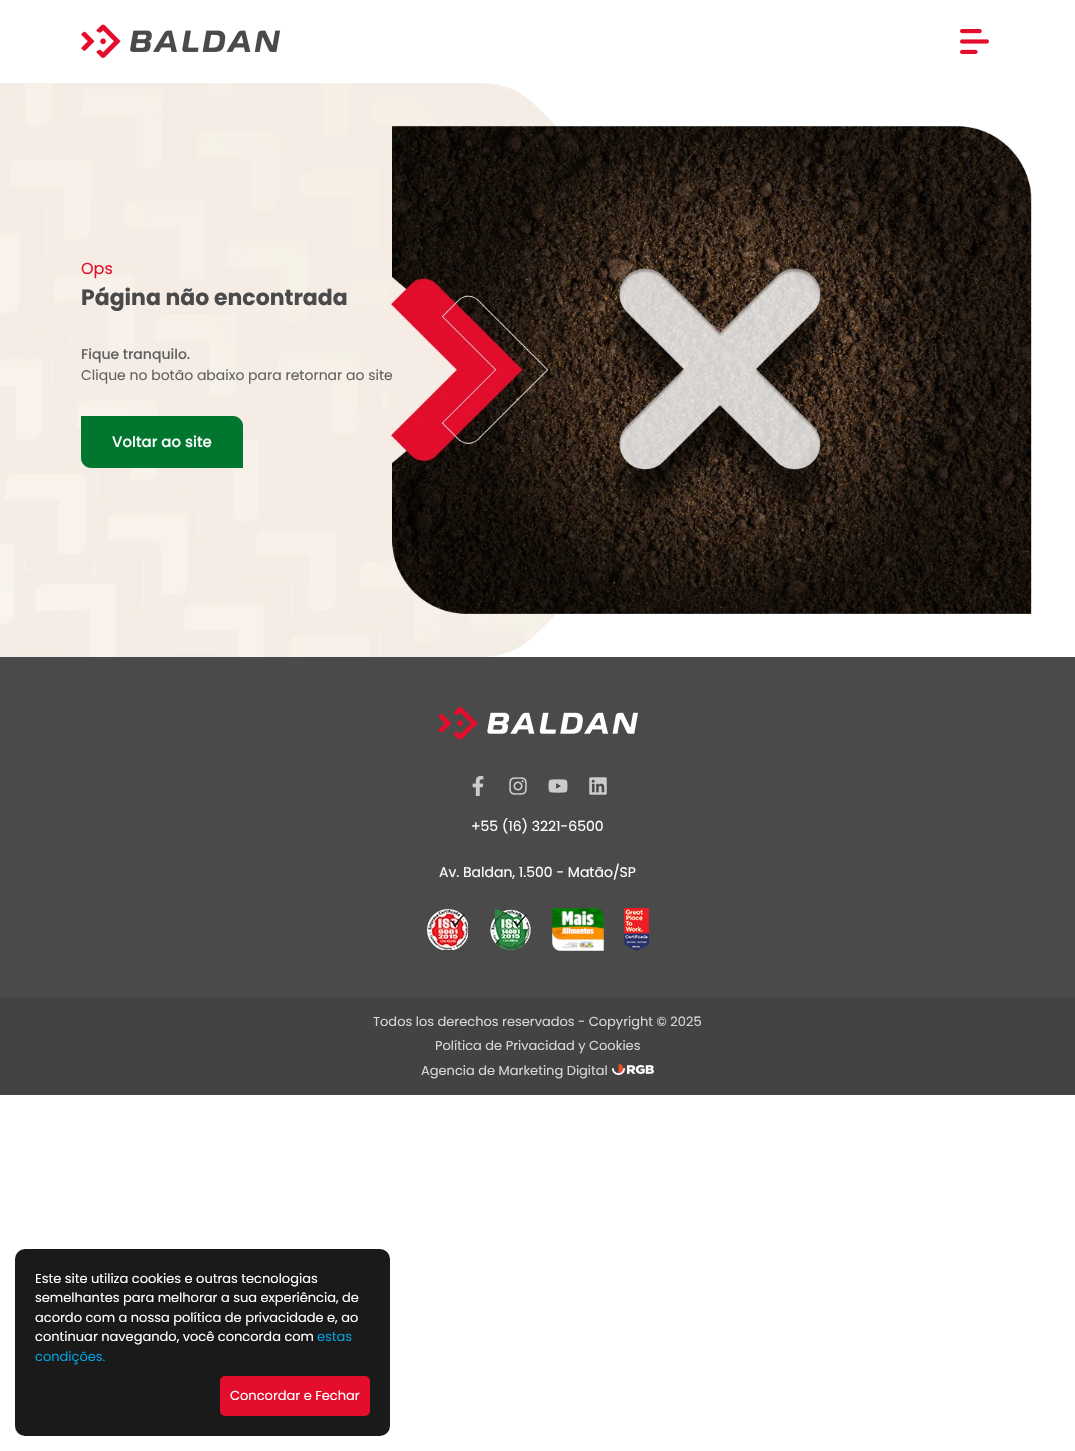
void draw(SkCanvas* c) {
SkPaint p;
p.setAntiAlias(true);
auto F=[&](const char* family, int weight, float size, bool italic = false){SkFontStyle style(weight, SkFontStyle::kNormal_Width,italic ? SkFontStyle::kItalic_Slant : SkFontStyle::kUpright_Slant);SkFont result(fontMgr->matchFamilyStyle(family, style), size);result.setSubpixel(true);return result;};
auto T=[&](const char* s, float x, float y, const SkFont& font){c->drawString(s, x, y, font, p);};
auto R=[&](float x, float y, float w, float h){c->drawRect(SkRect::MakeXYWH(x, y, w, h), p);};
auto Q=[&](float x, float y, float w, float h, float radius){c->drawRoundRect(SkRect::MakeXYWH(x, y, w, h), radius, radius, p);};
auto I=[&](const char* path, float x, float y, float w, float h){auto image = SkImages::DeferredFromEncodedData(SkData::MakeFromFileName(path));c->drawImageRect(image, SkRect::MakeXYWH(x, y, w, h), SkSamplingOptions());};
auto P=[&](const char* data, bool evenOdd = false){SkPath result = *SkParsePath::FromSVGString(data);if (evenOdd) result.setFillType(SkPathFillType::kEvenOdd);return result;};
c->clear(0xffffffff);
I("1.png",81,24,200,34);
I("2.png",960,29,29,25);
I("3.png",0,83,1032,574);
auto f1 = F("Poppins",400,16);
p.setColor(0xffe40d2c);
T("Ops",81,274,f1);
auto f2 = F("Poppins",700,22);
p.setColor(0xff4a4a4a);
T("Página não encontrada",81,305,f2);
auto f3 = F("Poppins",500,14);
p.setColor(0xff616161);
T("Fique tranquilo.",81,359,f3);
auto f4 = F("Poppins",400,14);
T("Clique no botão abaixo para retornar ao site",81,380,f4);
p.setColor(0xff00762e);
c->drawPath(P("M81 416h152c5.5 0 10 4.5 10 10v42h-152c-5.5 0-10-4.5-10-10z"),p);
auto f5 = F("Poppins",500,15);
p.setColor(0xffffffff);
T("Voltar ao site",112,447,f5);
p.setColor(0xff4a4a4a);
R(0,657,1075,340);
I("4.png",438,707,200,33);
I("5.png",472,776,12,20);
I("6.png",509,777,18,18);
I("7.png",548,779,20,14);
I("8.png",589,777,18,18);
p.setColor(0xffffffff);
T("+55 (16) 3221-6500",471,831,f4);
T("Av. Baldan, 1.500 - Matão/SP",439,877,f4);
I("9.png",427,909,41,41);
I("10.png",490,909,41,41);
I("11.png",552,908,52,43);
I("12.png",624,908,25,43);
p.setColor(0xff434343);
R(0,997,1075,98);
auto f6 = F("Poppins",400,13);
p.setColor(0xffd6d6d6);
T("Todos los derechos reservados - Copyright © 2025",373,1026,f6);
T("Política de Privacidad y Cookies",435,1050,f6);
T("Agencia de Marketing Digital",421,1075,f6);
I("13.png",612,1064,42,11);
p.setColor(0xff1a1a1a);
Q(15,1249,375,187,10);
p.setColor(0xffffffff);
T("Este site utiliza cookies e outras tecnologias",35,1283,f6);
T("semelhantes para melhorar a sua experiência, de",35,1302,f6);
T("acordo com a nossa política de privacidade e, ao",35,1322,f6);
T("continuar navegando, você concorda com",35,1341,f6);
p.setColor(0xff009fdd);
T("estas",317,1341,f6);
T("condições.",35,1361,f6);
p.setColor(0xffe40d2c);
Q(220,1376,150,40,5);
p.setColor(0xffffffff);
T("Concordar e Fechar",230,1400,f6);
}
